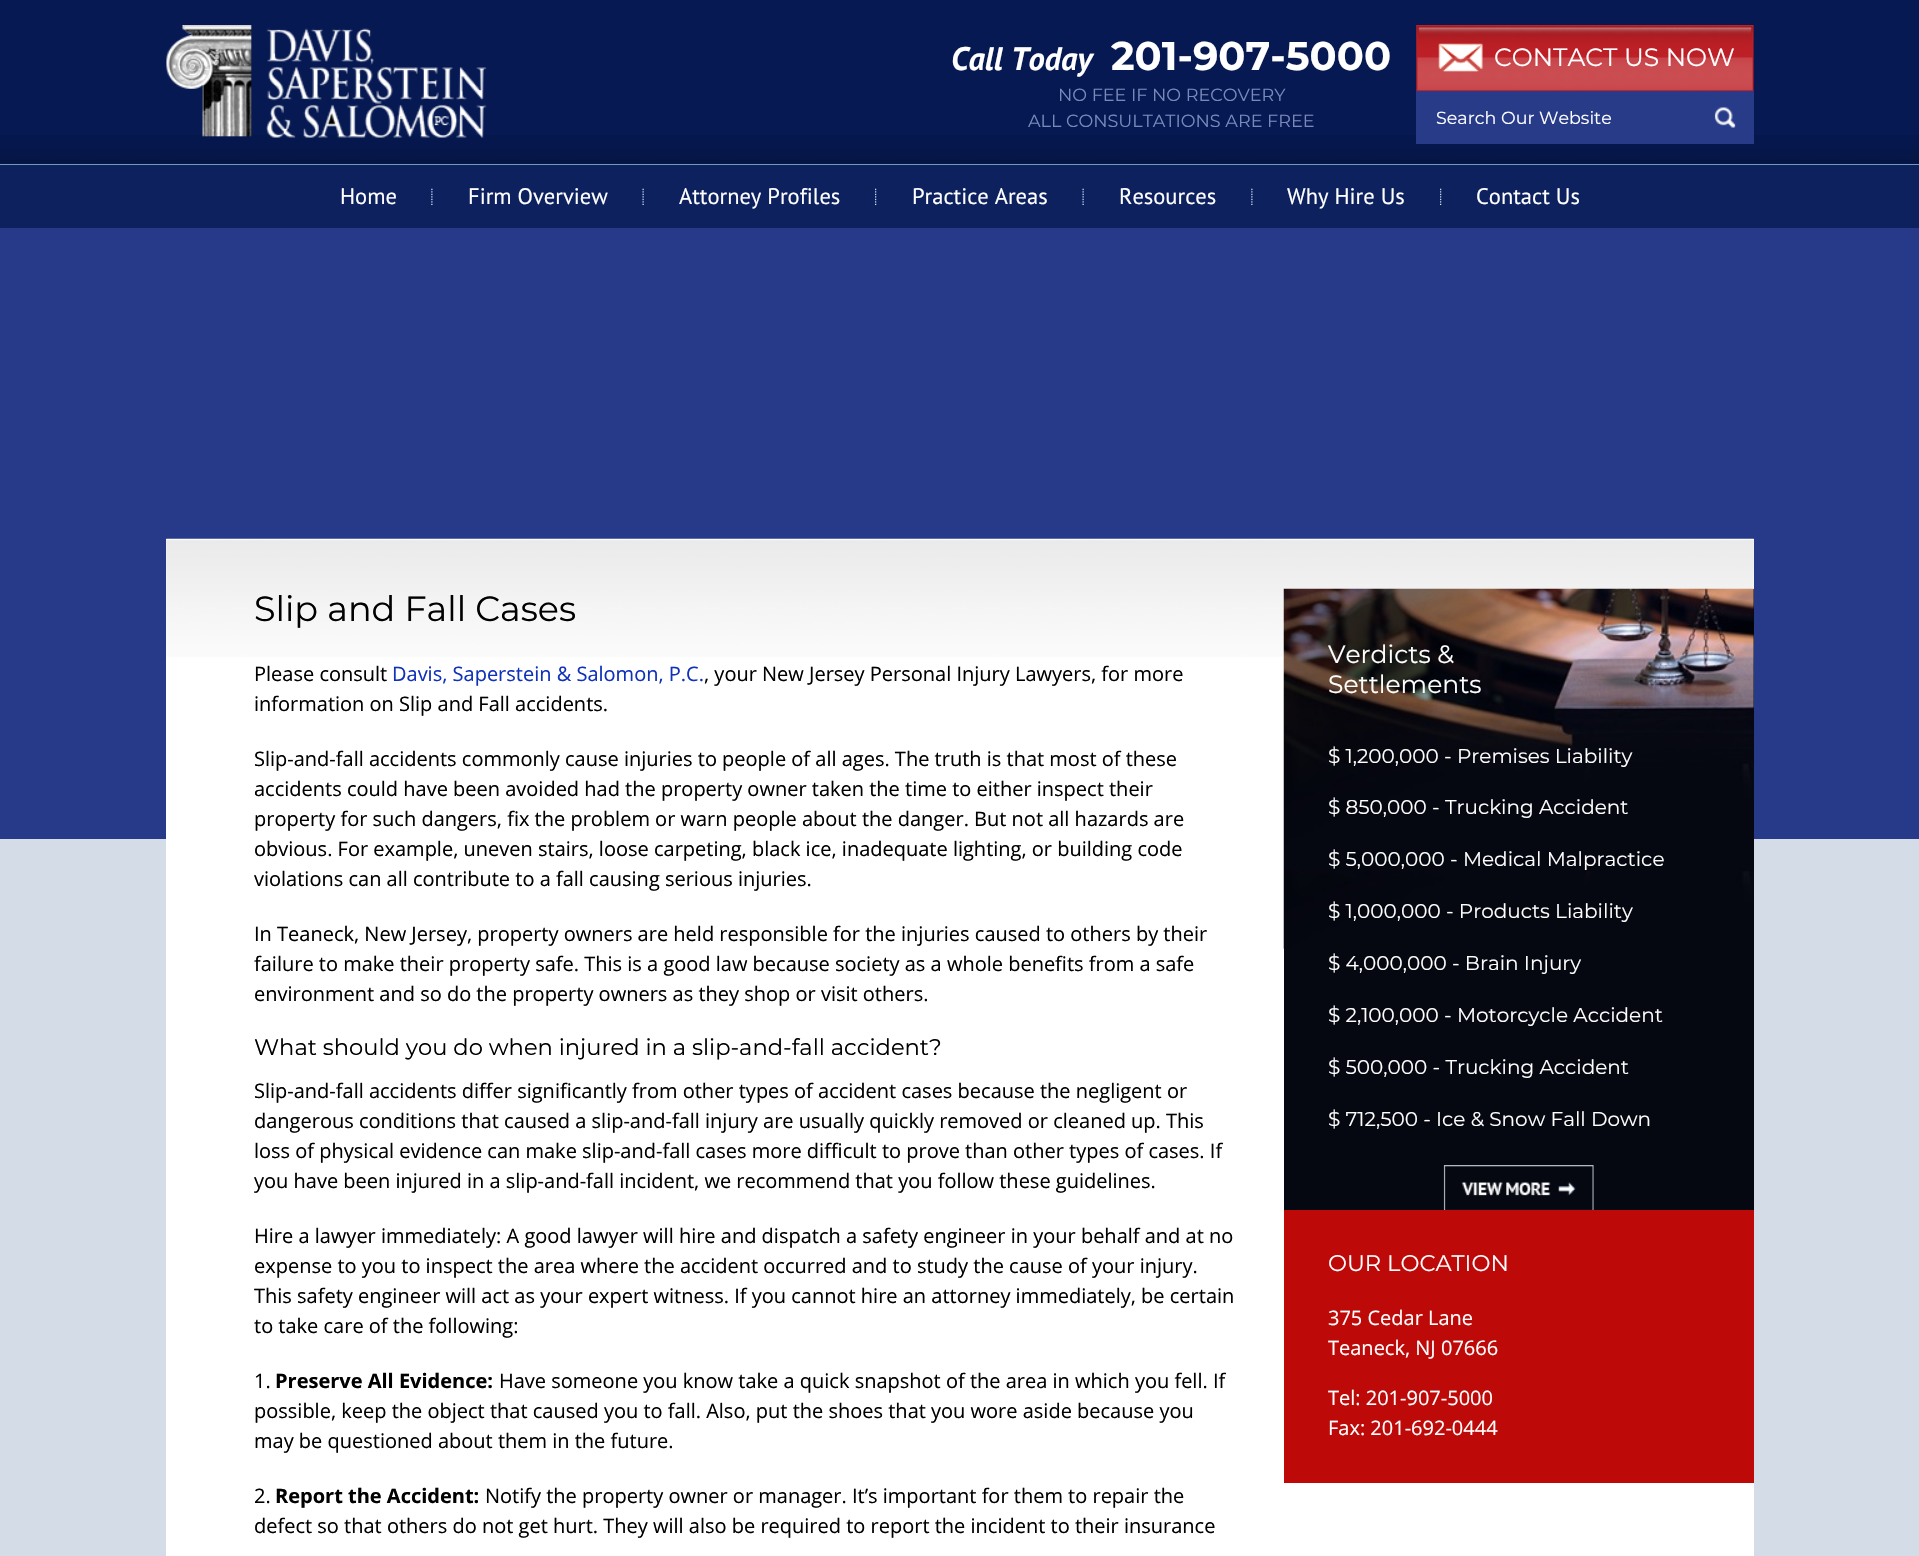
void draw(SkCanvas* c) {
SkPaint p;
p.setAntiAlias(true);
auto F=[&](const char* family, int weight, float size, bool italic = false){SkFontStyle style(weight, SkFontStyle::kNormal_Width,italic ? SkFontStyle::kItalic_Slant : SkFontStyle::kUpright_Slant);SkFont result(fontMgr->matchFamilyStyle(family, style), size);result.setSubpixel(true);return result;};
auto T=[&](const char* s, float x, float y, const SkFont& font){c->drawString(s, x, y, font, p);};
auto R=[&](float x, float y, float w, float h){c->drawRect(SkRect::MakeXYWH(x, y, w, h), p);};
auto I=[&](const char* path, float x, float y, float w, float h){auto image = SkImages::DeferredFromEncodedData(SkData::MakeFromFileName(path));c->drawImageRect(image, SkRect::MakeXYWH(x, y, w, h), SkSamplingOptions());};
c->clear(0xffd4dce7);
p.setColor(0xff061952);
R(0,0,1919,164);
I("1.png",0,135,1919,29);
p.setColor(0xff729ab9);
R(0,164,1919,1);
I("2.png",166,25,321,113);
auto f1 = F("PT Sans",700,32.5,true);
p.setColor(0xffffffff);
T("Call Today",951,70,f1);
auto f2 = F("Montserrat",700,40);
T("201-907-5000",1111,70,f2);
auto f3 = F("Montserrat",400,17.6);
p.setColor(0xff7889bb);
T("NO FEE IF NO RECOVERY",1058,101,f3);
T("ALL CONSULTATIONS ARE FREE",1028,127,f3);
I("3.png",1416,25,338,66);
auto f4 = F("Montserrat",400,25);
p.setColor(0xffffffff);
T("CONTACT US NOW",1494,66,f4);
p.setColor(0xff273b89);
R(1416,91,338,53);
auto f5 = F("Montserrat",400,17.5);
p.setColor(0xffffffff);
T("Search Our Website",1436,124,f5);
I("4.png",1714,107,22,21);
p.setColor(0xff0e215f);
R(0,165,1919,63);
auto f6 = F("PT Sans",400,22.5);
p.setColor(0xffffffff);
T("Home",340,204,f6);
I("5.png",431,188,2,17);
T("Firm Overview",468,204,f6);
I("6.png",642,188,2,17);
T("Attorney Profiles",679,204,f6);
I("7.png",875,188,2,17);
T("Practice Areas",912,204,f6);
I("6.png",1082,188,2,17);
T("Resources",1119,204,f6);
I("5.png",1251,188,2,17);
T("Why Hire Us",1287,204,f6);
I("7.png",1440,188,2,17);
T("Contact Us",1476,204,f6);
p.setColor(0xff273a89);
R(0,228,1919,611);
p.setColor(0xffffffff);
R(166,539,1588,1017);
I("8.png",166,538,1588,119);
auto f7 = F("Montserrat",400,35);
p.setColor(0xff000000);
T("Slip and Fall Cases",254,621,f7);
auto f8 = F("Open Sans",400,20);
T("Please consult",254,681,f8);
p.setColor(0xff1031ba);
T("Davis, Saperstein & Salomon, P.C.",392,681,f8);
p.setColor(0xff000000);
T(", your New Jersey Personal Injury Lawyers, for more",704,681,f8);
T("information on Slip and Fall accidents.",254,711,f8);
T("Slip-and-fall accidents commonly cause injuries to people of all ages. The truth is that most of these",254,766,f8);
T("accidents could have been avoided had the property owner taken the time to either inspect their",254,796,f8);
T("property for such dangers, fix the problem or warn people about the danger. But not all hazards are",254,826,f8);
T("obvious. For example, uneven stairs, loose carpeting, black ice, inadequate lighting, or building code",254,856,f8);
T("violations can all contribute to a fall causing serious injuries.",254,886,f8);
T("In Teaneck, New Jersey, property owners are held responsible for the injuries caused to others by their",254,941,f8);
T("failure to make their property safe. This is a good law because society as a whole benefits from a safe",254,971,f8);
T("environment and so do the property owners as they shop or visit others.",254,1001,f8);
auto f9 = F("Montserrat",400,22.6);
T("What should you do when injured in a slip-and-fall accident?",254,1055,f9);
T("Slip-and-fall accidents differ significantly from other types of accident cases because the negligent or",254,1098,f8);
T("dangerous conditions that caused a slip-and-fall injury are usually quickly removed or cleaned up. This",254,1128,f8);
T("loss of physical evidence can make slip-and-fall cases more difficult to prove than other types of cases. If",254,1158,f8);
T("you have been injured in a slip-and-fall incident, we recommend that you follow these guidelines.",254,1188,f8);
T("Hire a lawyer immediately: A good lawyer will hire and dispatch a safety engineer in your behalf and at no",254,1243,f8);
T("expense to you to inspect the area where the accident occurred and to study the cause of your injury.",254,1273,f8);
T("This safety engineer will act as your expert witness. If you cannot hire an attorney immediately, be certain",254,1303,f8);
T("to take care of the following:",254,1333,f8);
T("1.",254,1388,f8);
auto f10 = F("Open Sans",700,20);
T("Preserve All Evidence:",275,1388,f10);
T("Have someone you know take a quick snapshot of the area in which you fell. If",499,1388,f8);
T("possible, keep the object that caused you to fall. Also, put the shoes that you wore aside because you",254,1418,f8);
T("may be questioned about them in the future.",254,1448,f8);
T("2.",254,1503,f8);
T("Report the Accident:",275,1503,f10);
T("Notify the property owner or manager. It’s important for them to repair the",485,1503,f8);
T("defect so that others do not get hurt. They will also be required to report the incident to their insurance",254,1533,f8);
p.setColor(0xff050711);
R(1284,589,470,621);
I("9.png",1283,588,471,361);
p.setColor(0xffffffff);
T("Verdicts &",1328,663,f4);
T("Settlements",1328,693,f4);
auto f11 = F("Montserrat",400,20);
T("$ 1,200,000 - Premises Liability",1328,763,f11);
T("$ 850,000 - Trucking Accident",1328,814,f11);
T("$ 5,000,000 - Medical Malpractice",1328,866,f11);
T("$ 1,000,000 - Products Liability",1328,918,f11);
T("$ 4,000,000 - Brain Injury",1328,970,f11);
T("$ 2,100,000 - Motorcycle Accident",1328,1022,f11);
T("$ 500,000 - Trucking Accident",1328,1074,f11);
T("$ 712,500 - Ice & Snow Fall Down",1328,1126,f11);
I("10.png",1443,1165,151,45);
p.setColor(0xffbe0909);
R(1284,1210,470,273);
p.setColor(0xffffffff);
T("OUR LOCATION",1328,1271,f9);
T("375 Cedar Lane",1328,1325,f8);
T("Teaneck, NJ 07666",1328,1355,f8);
T("Tel: 201-907-5000",1328,1405,f8);
T("Fax: 201-692-0444",1328,1435,f8);
}
